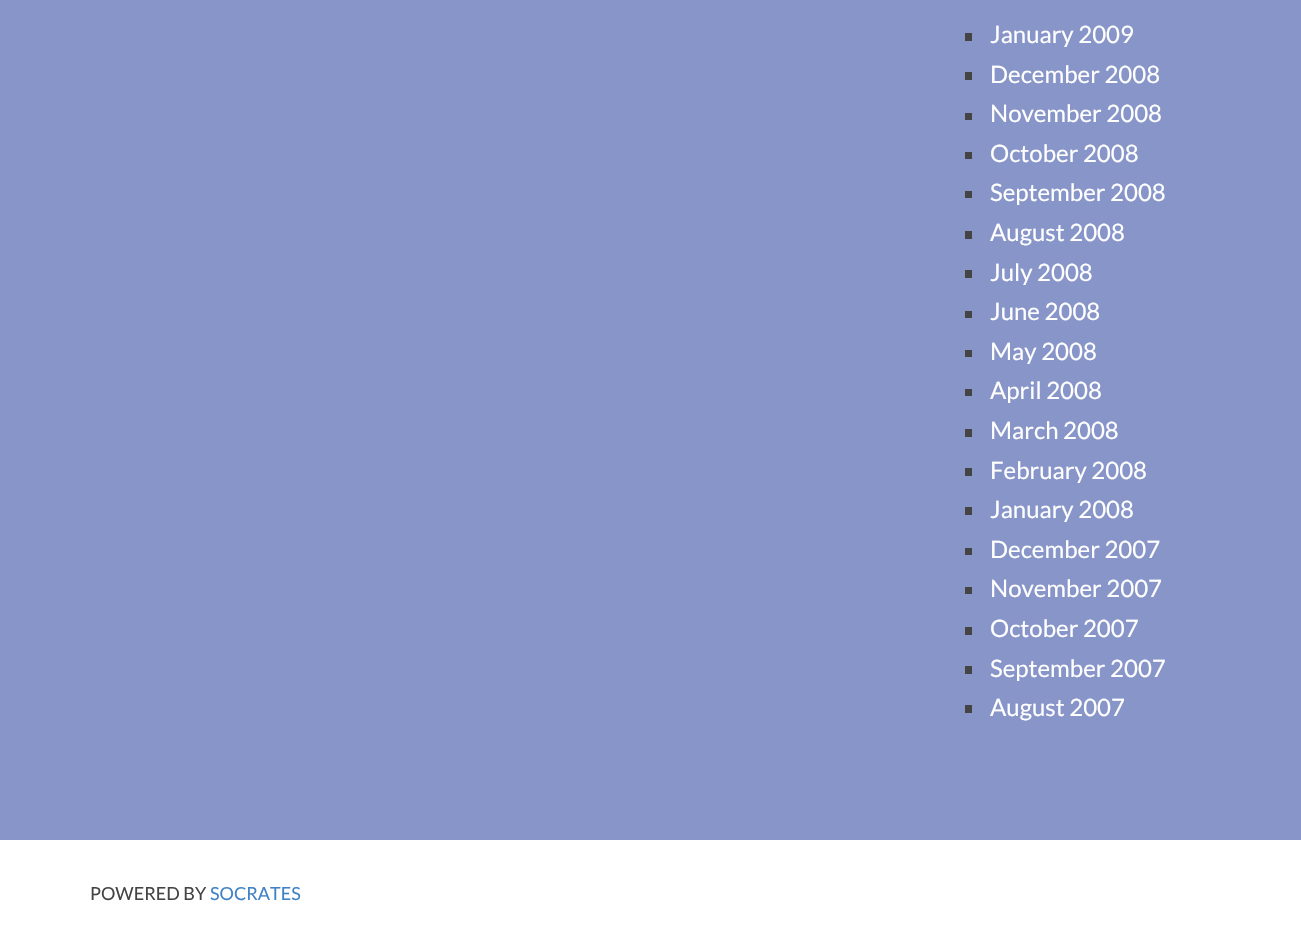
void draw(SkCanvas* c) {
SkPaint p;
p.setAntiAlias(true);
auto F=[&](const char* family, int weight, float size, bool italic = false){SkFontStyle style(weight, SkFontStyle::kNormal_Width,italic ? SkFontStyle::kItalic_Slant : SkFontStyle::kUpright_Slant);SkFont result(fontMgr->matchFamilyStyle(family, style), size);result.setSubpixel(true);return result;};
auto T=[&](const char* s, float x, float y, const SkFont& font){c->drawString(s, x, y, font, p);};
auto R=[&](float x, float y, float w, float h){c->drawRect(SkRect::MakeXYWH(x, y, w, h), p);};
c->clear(0xff8895c9);
p.setColor(0xff444444);
R(965,33,7,8);
auto f1 = F("Lato",400,24);
p.setColor(0xffffffff);
T("January 2009",990,43,f1);
p.setColor(0xff444444);
R(965,72,7,8);
p.setColor(0xffffffff);
T("December 2008",990,83,f1);
p.setColor(0xff444444);
R(965,113,7,7);
p.setColor(0xffffffff);
T("November 2008",990,122,f1);
p.setColor(0xff444444);
R(965,152,7,7);
p.setColor(0xffffffff);
T("October 2008",990,162,f1);
p.setColor(0xff444444);
R(965,191,7,7);
p.setColor(0xffffffff);
T("September 2008",990,201,f1);
p.setColor(0xff444444);
R(965,231,7,8);
p.setColor(0xffffffff);
T("August 2008",990,241,f1);
p.setColor(0xff444444);
R(965,270,7,8);
p.setColor(0xffffffff);
T("July 2008",990,281,f1);
p.setColor(0xff444444);
R(965,311,7,7);
p.setColor(0xffffffff);
T("June 2008",990,320,f1);
p.setColor(0xff444444);
R(965,350,7,7);
p.setColor(0xffffffff);
T("May 2008",990,360,f1);
p.setColor(0xff444444);
R(965,389,7,7);
p.setColor(0xffffffff);
T("April 2008",990,399,f1);
p.setColor(0xff444444);
R(965,429,7,8);
p.setColor(0xffffffff);
T("March 2008",990,439,f1);
p.setColor(0xff444444);
R(965,468,7,8);
p.setColor(0xffffffff);
T("February 2008",990,479,f1);
p.setColor(0xff444444);
R(965,507,7,8);
p.setColor(0xffffffff);
T("January 2008",990,518,f1);
p.setColor(0xff444444);
R(965,548,7,7);
p.setColor(0xffffffff);
T("December 2007",990,558,f1);
p.setColor(0xff444444);
R(965,587,7,7);
p.setColor(0xffffffff);
T("November 2007",990,597,f1);
p.setColor(0xff444444);
R(965,627,7,8);
p.setColor(0xffffffff);
T("October 2007",990,637,f1);
p.setColor(0xff444444);
R(965,666,7,8);
p.setColor(0xffffffff);
T("September 2007",990,677,f1);
p.setColor(0xff444444);
R(965,705,7,8);
p.setColor(0xffffffff);
T("August 2007",990,716,f1);
R(0,840,1301,108);
auto f2 = F("Lato",400,18);
p.setColor(0xff444444);
T("POWERED BY",90,900,f2);
p.setColor(0xff4082c6);
T("SOCRATES",210,900,f2);
}
